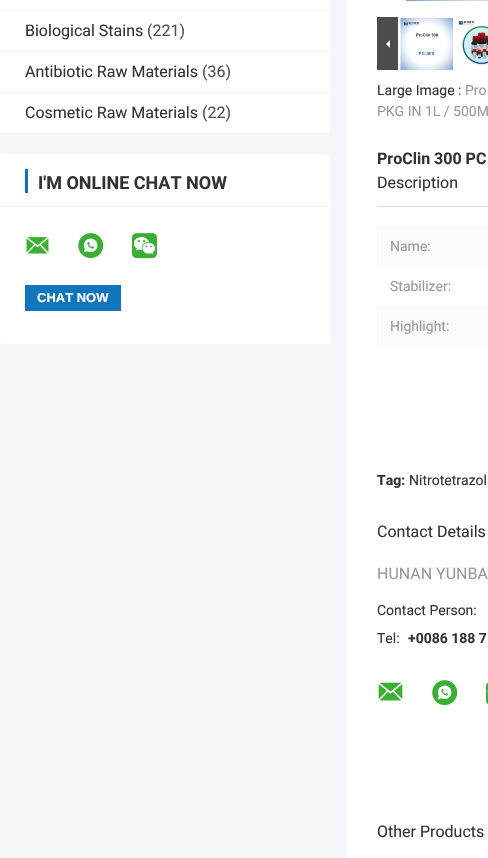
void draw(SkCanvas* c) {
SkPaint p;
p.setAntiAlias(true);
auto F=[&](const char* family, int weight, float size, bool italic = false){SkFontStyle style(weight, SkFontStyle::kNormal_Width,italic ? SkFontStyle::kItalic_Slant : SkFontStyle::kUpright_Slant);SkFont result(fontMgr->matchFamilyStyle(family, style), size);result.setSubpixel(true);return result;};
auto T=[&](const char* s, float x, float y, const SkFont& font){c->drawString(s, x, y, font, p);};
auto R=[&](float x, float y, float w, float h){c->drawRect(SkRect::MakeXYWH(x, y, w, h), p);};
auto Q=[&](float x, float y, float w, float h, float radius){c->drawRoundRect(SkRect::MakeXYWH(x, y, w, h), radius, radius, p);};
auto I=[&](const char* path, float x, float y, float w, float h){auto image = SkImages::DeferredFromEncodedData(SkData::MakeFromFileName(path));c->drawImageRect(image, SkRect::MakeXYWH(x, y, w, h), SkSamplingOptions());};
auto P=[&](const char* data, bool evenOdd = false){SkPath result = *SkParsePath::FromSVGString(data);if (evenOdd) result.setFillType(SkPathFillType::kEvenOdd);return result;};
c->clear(0xfff4f6f9);
p.setColor(0xffffffff);
Q(0,-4,330,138,4);
p.setColor(0xfff5f5f5);
R(0,10,330,1);
R(0,51,330,1);
auto f1 = F("Roboto",400,16);
p.setColor(0xff333333);
T("Biological Stains",25,36,f1);
p.setColor(0xff4e4e4e);
T("(221)",147,36,f1);
p.setColor(0xfff5f5f5);
R(0,92,330,1);
p.setColor(0xff333333);
T("Antibiotic Raw Materials",25,77,f1);
p.setColor(0xff4e4e4e);
T("(36)",202,77,f1);
p.setColor(0xfff5f5f5);
R(0,133,330,1);
p.setColor(0xff333333);
T("Cosmetic Raw Materials",25,118,f1);
p.setColor(0xff4e4e4e);
T("(22)",202,118,f1);
p.setColor(0xffffffff);
Q(0,154,330,190,4);
p.setColor(0xfff5f5f5);
R(0,206,330,1);
p.setColor(0xff0f75bd);
R(25,169,3,24);
auto f2 = F("Roboto",700,18);
p.setColor(0xff333333);
T("I'M ONLINE CHAT NOW",38,189,f2);
I("1.png",26,237,23,17);
I("2.png",78,233,26,26);
I("3.png",132,233,25,26);
p.setColor(0xff0f75bd);
R(25,285,96,26);
auto f3 = F("Liberation Sans",700,13);
p.setColor(0xffffffff);
T("CHAT NOW",37,302,f3);
R(347,0,141,858);
I("4.png",406,0,82,1);
p.setColor(0xff4d4d4d);
R(377,17,21,53);
p.setColor(0xffffffff);
c->drawPath(P("M390 40v8l-4-4z"),p);
I("5.png",400,18,53,52);
I("6.png",459,20,29,46);
auto f4 = F("Roboto",400,14);
p.setColor(0xff333333);
T("Large Image :",377,95,f4);
p.setColor(0xff999999);
T("Pro",465,95,f4);
T("PKG IN 1L / 500M",377,116,f4);
p.setColor(0xffdddddd);
R(377,206,111,1);
auto f5 = F("Roboto",700,16);
p.setColor(0xff333333);
T("ProClin 300 PC",377,164,f5);
T("Description",377,188,f1);
p.setColor(0xfffafafa);
R(377,226,111,40);
p.setColor(0xff999999);
T("Name:",390,251,f4);
T("Stabilizer:",390,291,f4);
p.setColor(0xfffafafa);
R(377,306,111,40);
p.setColor(0xff999999);
T("Highlight:",390,331,f4);
auto f6 = F("Roboto",700,14);
p.setColor(0xff333333);
T("Tag:",377,485,f6);
T("Nitrotetrazol",409,485,f4);
T("Contact Details",377,537,f1);
p.setColor(0xff999999);
T("HUNAN YUNBA",377,579,f1);
p.setColor(0xff333333);
T("Contact Person:",377,615,f4);
T("Tel:",377,643,f4);
T("+0086 188 7",408,643,f6);
I("7.png",378,682,25,19);
I("2.png",432,680,26,26);
I("8.png",486,682,2,23);
T("Other Products",377,837,f1);
}
